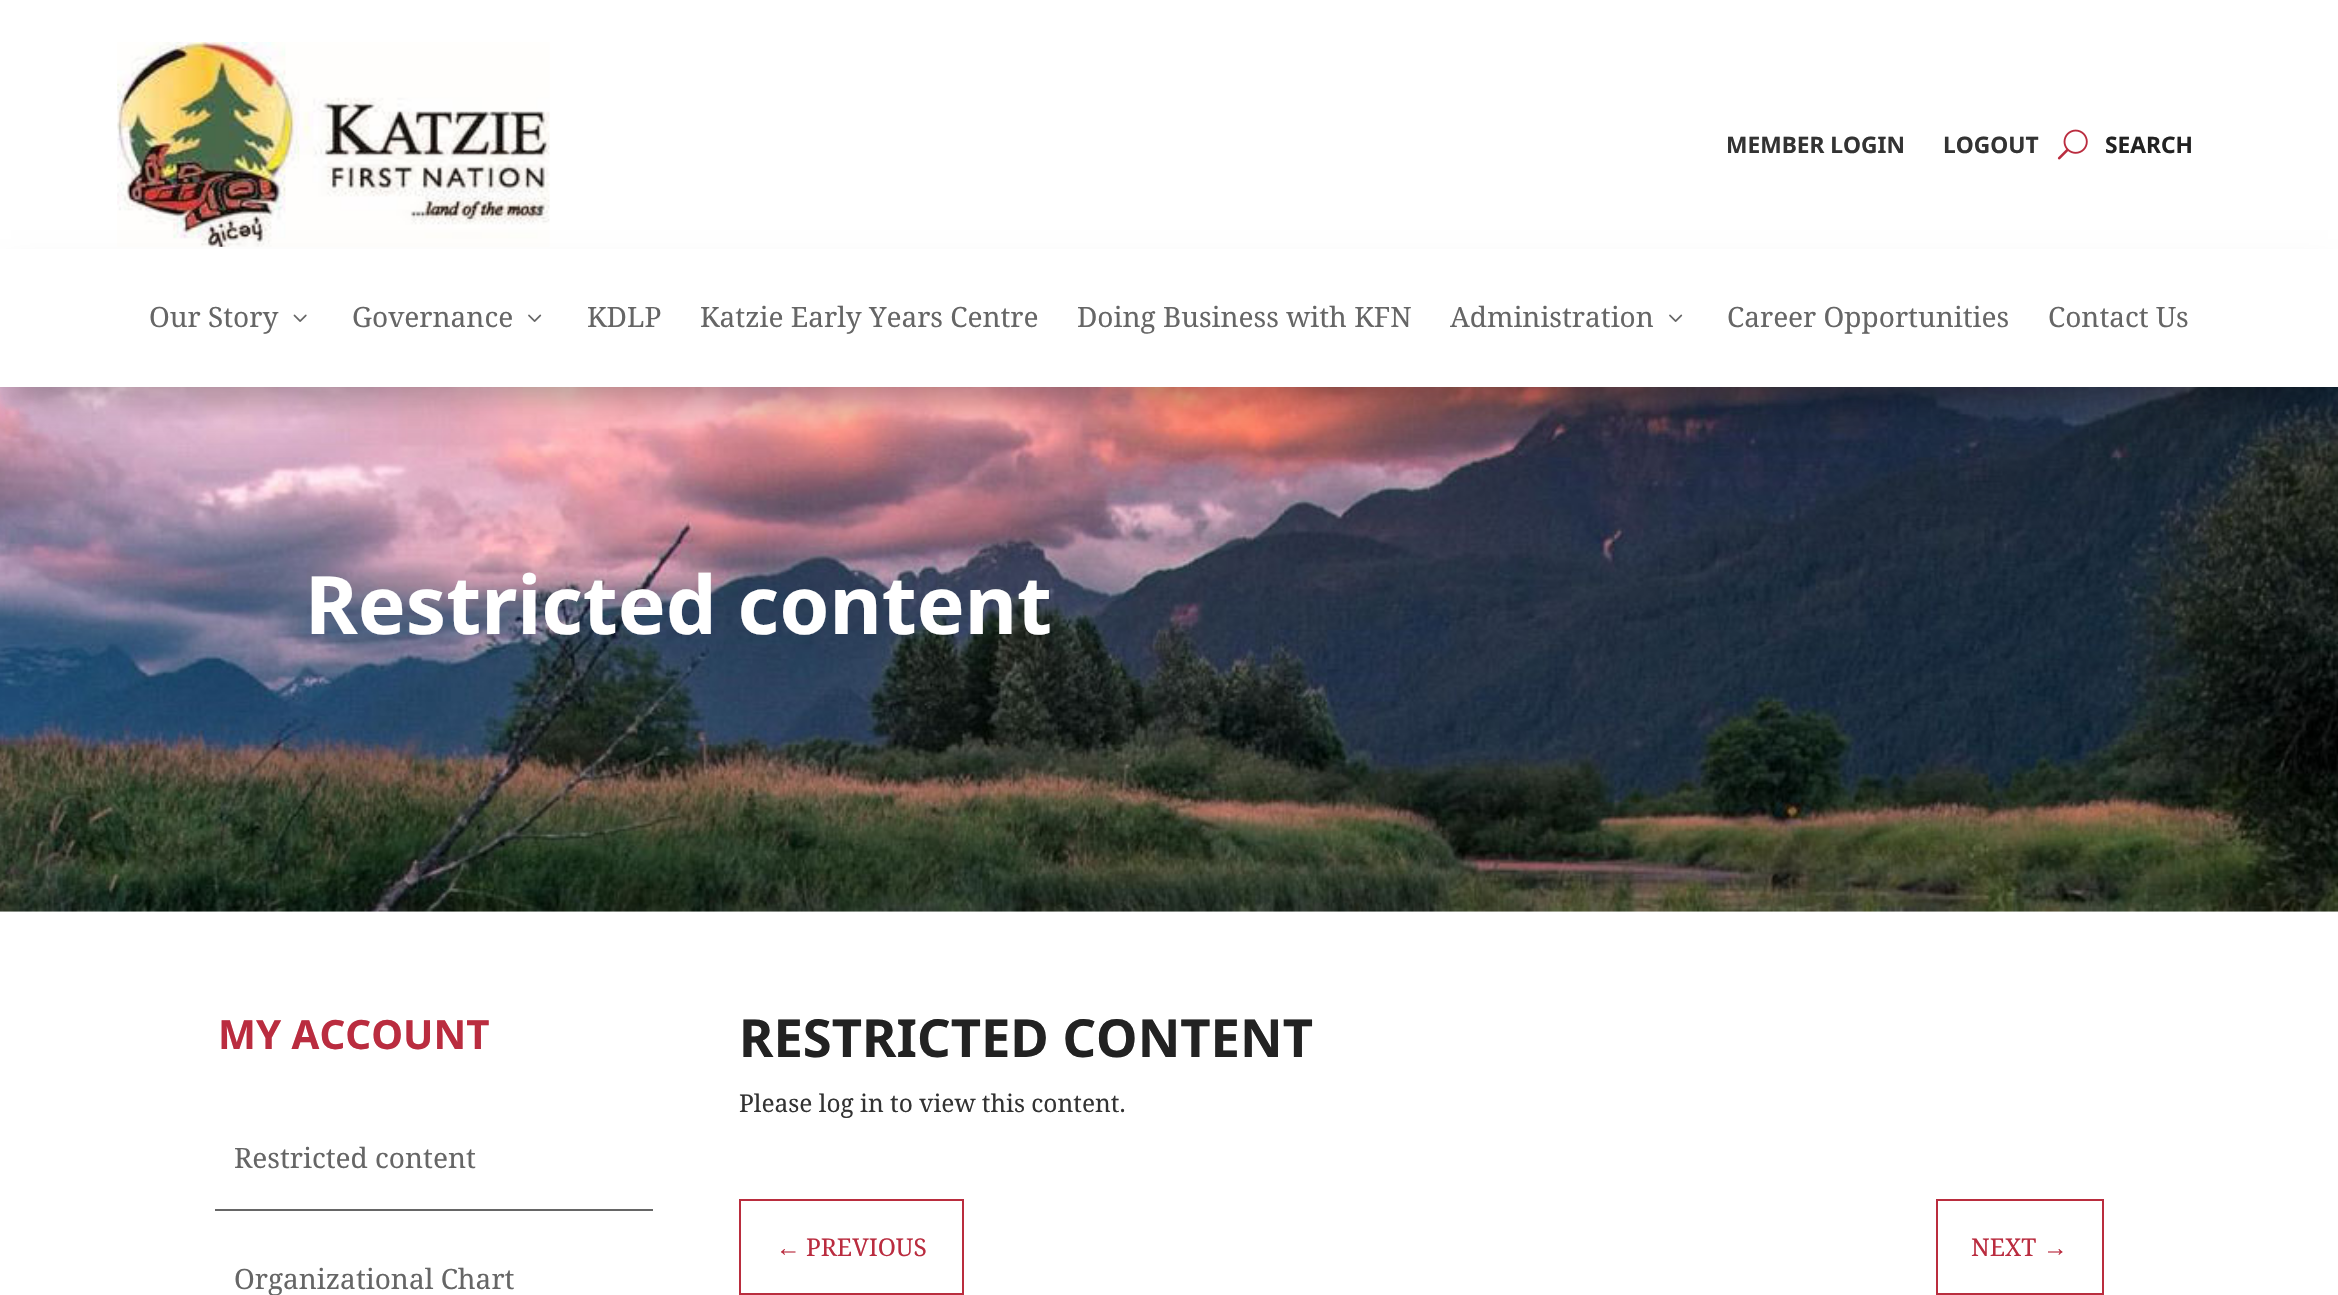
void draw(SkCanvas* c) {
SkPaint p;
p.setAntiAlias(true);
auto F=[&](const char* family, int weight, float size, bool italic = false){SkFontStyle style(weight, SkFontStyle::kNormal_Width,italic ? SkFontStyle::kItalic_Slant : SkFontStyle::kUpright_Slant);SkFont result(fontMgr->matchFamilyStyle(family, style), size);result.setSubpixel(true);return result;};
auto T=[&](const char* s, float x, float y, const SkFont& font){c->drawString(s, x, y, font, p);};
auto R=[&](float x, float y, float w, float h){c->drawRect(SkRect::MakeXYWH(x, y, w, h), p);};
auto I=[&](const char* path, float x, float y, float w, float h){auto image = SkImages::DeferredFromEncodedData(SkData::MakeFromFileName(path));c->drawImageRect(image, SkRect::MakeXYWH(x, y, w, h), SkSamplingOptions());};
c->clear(0xffffffff);
I("1.png",117,42,433,205);
auto f1 = F("Noto Sans",700,22.75);
p.setColor(0xff333333);
T("MEMBER LOGIN",1726,153,f1);
T("LOGOUT",1943,153,f1);
I("2.png",2057,129,31,31);
p.setColor(0xff222222);
T("SEARCH",2105,153,f1);
I("5.png",0,387,2338,525);
p.setColor(0x4d000000);
p.setMaskFilter(SkMaskFilter::MakeBlur(kNormal_SkBlurStyle, 16));
c->drawRect(SkRect::MakeXYWH(11,278,2317,119),p);
p.setMaskFilter(nullptr);
p.setColor(0xffffffff);
R(0,249,2338,138);
auto f2 = F("Noto Serif",400,28);
p.setColor(0xff666666);
T("Our Story",149,327,f2);
I("3.png",293,314,14,8);
T("Governance",352,327,f2);
I("4.png",528,314,14,8);
T("KDLP",587,327,f2);
T("Katzie Early Years Centre",700,327,f2);
T("Doing Business with KFN",1077,327,f2);
T("Administration",1450,327,f2);
I("4.png",1669,314,14,8);
T("Career Opportunities",1727,327,f2);
T("Contact Us",2048,327,f2);
auto f3 = F("Noto Sans",700,80.5);
p.setColor(0xffffffff);
T("Restricted content",305,634,f3);
auto f4 = F("Noto Sans",700,40.25);
p.setColor(0xffba2c3f);
T("MY ACCOUNT",218,1049,f4);
p.setColor(0xff666666);
R(215,1209,438,2);
T("Restricted content",234,1168,f2);
T("Organizational Chart",234,1289,f2);
auto f5 = F("Noto Sans",700,52.5);
p.setColor(0xff222222);
T("RESTRICTED CONTENT",739,1057,f5);
auto f6 = F("Noto Serif",400,24.5);
p.setColor(0xff333333);
T("Please log in to view this content.",739,1112,f6);
p.setStroke(true);
p.setStrokeWidth(2);
p.setColor(0xffba2d3e);
c->drawRect(SkRect::MakeXYWH(740,1200,223,94),p);
auto f7 = F("Liberation Serif",400,24.5);
p.setStroke(false);
p.setColor(0xffba2c3f);
T("←",776,1256,f7);
T("PREVIOUS",806,1256,f6);
p.setStroke(true);
p.setColor(0xffba2d3e);
c->drawRect(SkRect::MakeXYWH(1937,1200,166,94),p);
p.setStroke(false);
p.setColor(0xffba2c3f);
T("NEXT",1971,1256,f6);
T("→",2043,1256,f7);
}
